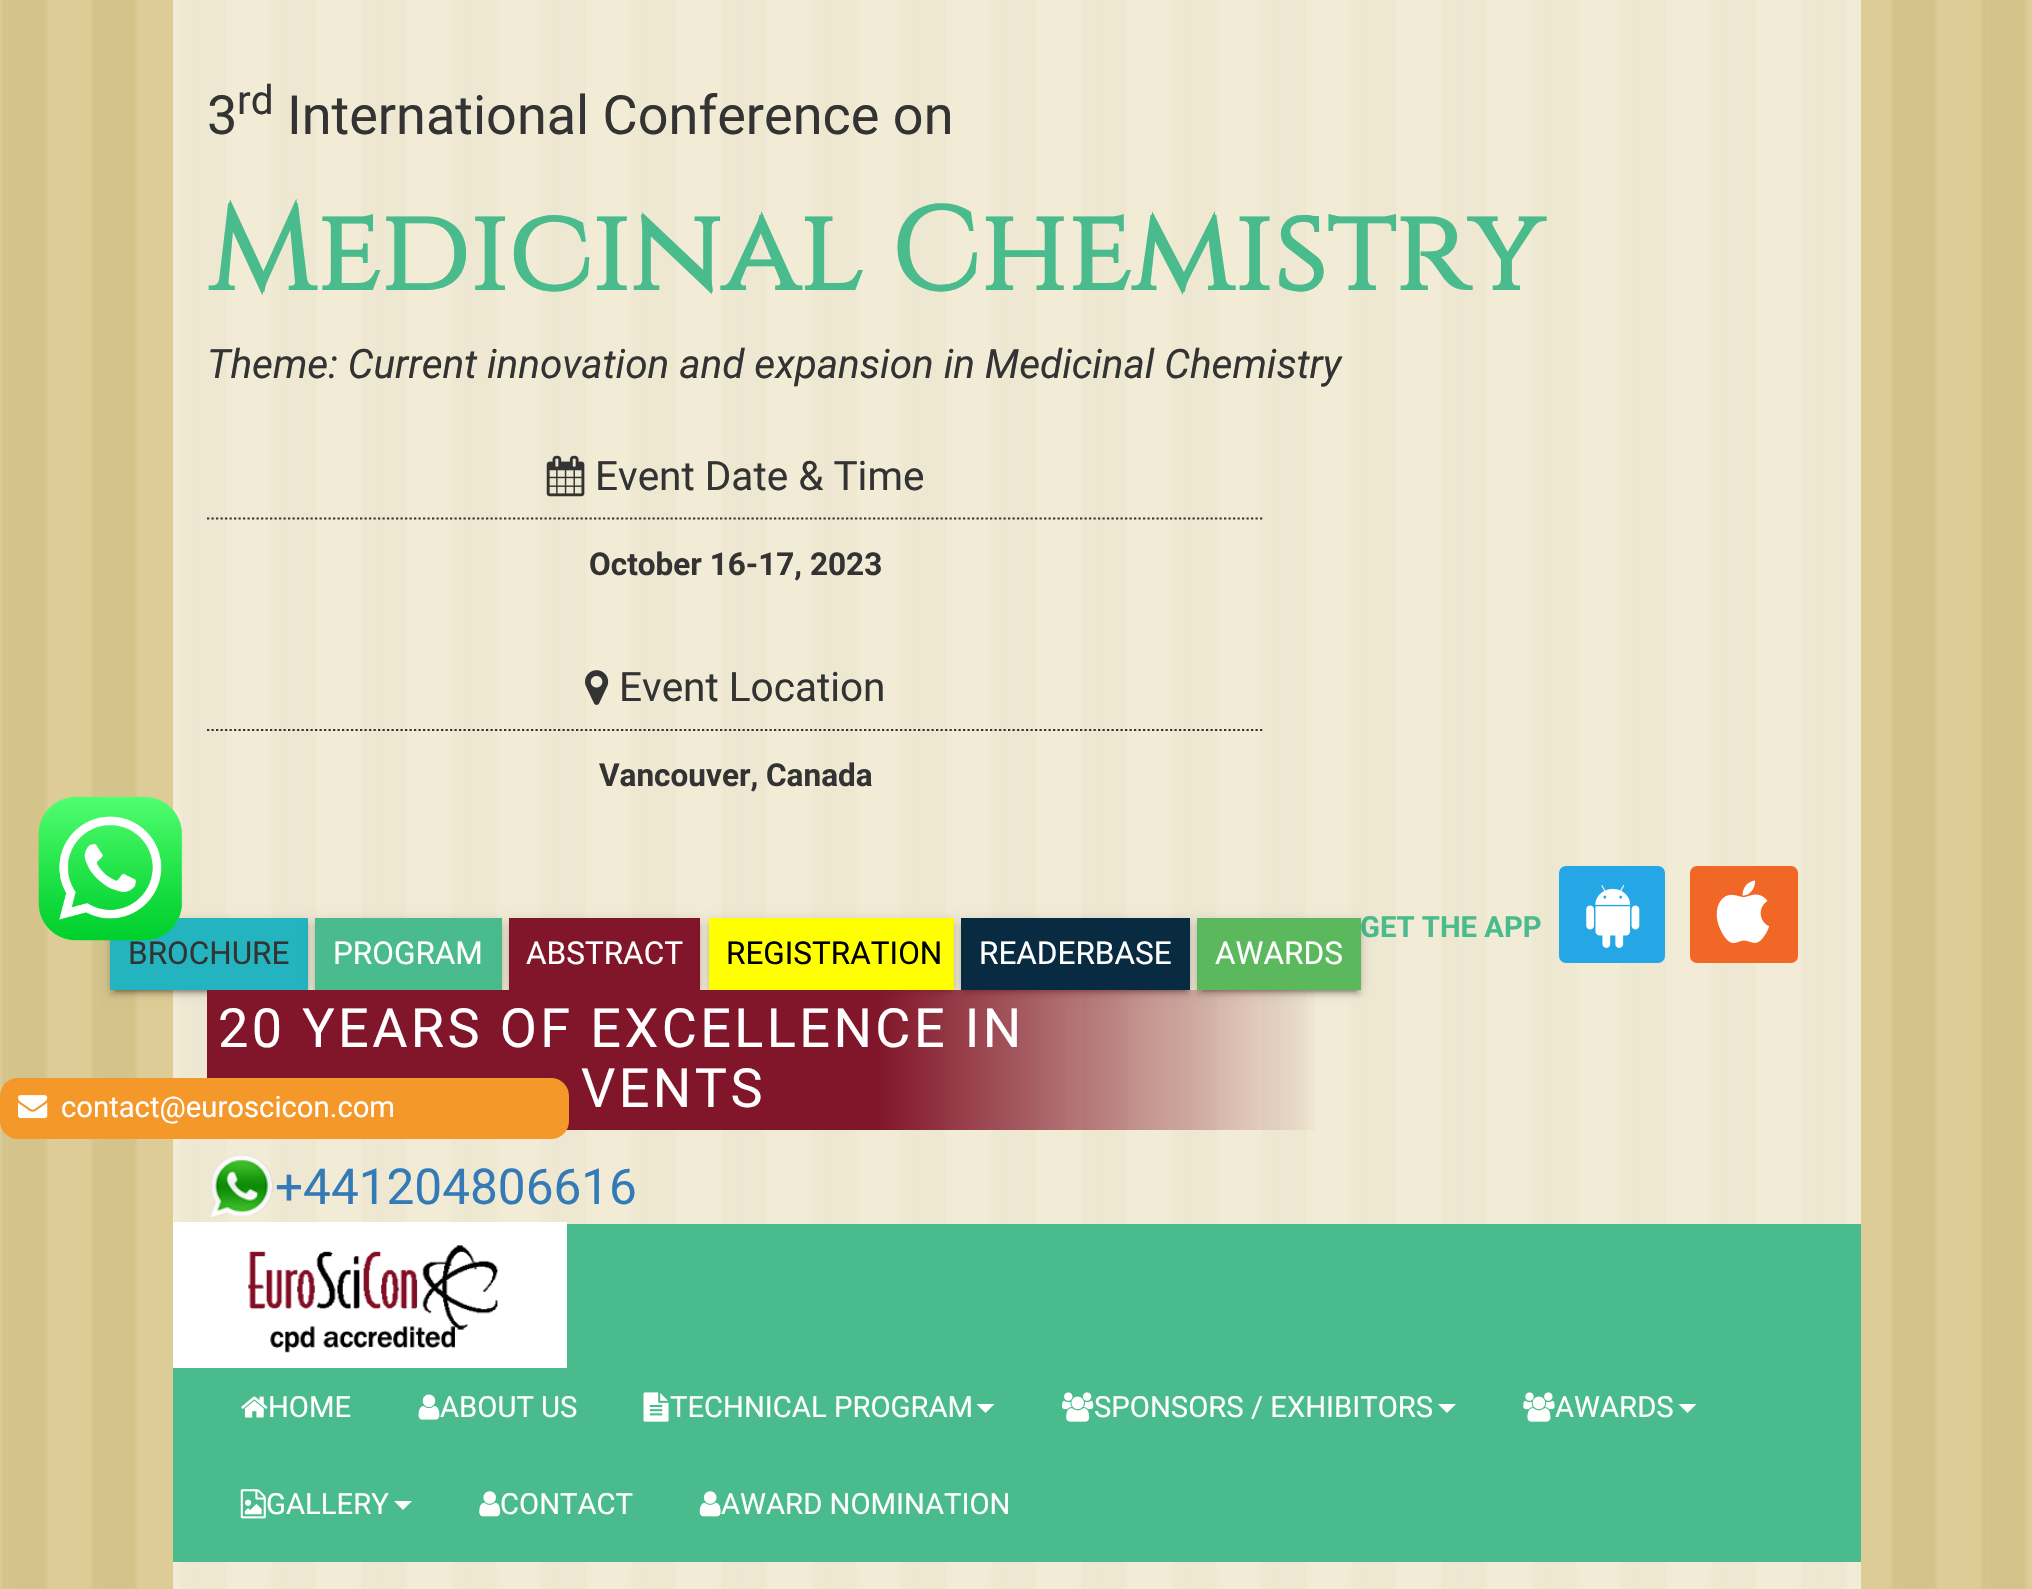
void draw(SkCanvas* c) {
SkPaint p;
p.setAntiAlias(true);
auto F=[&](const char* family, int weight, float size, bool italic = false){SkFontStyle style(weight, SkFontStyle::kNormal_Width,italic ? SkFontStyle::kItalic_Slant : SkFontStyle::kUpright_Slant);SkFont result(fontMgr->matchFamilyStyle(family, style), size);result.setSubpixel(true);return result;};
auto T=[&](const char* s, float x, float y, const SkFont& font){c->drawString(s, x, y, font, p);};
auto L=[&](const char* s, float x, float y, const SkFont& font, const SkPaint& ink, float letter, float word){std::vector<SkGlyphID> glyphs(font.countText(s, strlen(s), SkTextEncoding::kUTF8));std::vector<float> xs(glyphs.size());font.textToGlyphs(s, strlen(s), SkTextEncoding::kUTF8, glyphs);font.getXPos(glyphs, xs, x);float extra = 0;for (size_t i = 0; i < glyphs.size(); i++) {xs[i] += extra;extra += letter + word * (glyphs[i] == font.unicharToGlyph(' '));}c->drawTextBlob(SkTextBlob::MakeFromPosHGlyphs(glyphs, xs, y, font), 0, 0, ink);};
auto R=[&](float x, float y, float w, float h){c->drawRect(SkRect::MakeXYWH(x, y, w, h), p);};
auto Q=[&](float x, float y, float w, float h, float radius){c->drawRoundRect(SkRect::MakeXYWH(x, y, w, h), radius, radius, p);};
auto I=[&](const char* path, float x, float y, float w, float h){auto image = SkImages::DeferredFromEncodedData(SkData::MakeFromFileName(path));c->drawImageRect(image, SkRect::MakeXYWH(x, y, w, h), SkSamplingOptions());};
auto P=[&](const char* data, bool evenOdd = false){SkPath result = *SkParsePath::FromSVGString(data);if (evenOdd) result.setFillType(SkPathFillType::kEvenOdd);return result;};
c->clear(0xffffffff);
I("1.png",0,0,2032,1589);
p.setColor(0x99ffffff);
R(173,0,1688,1589);
auto f1 = F("Roboto",400,54);
p.setColor(0xff333333);
T("3",207,134,f1);
auto f2 = F("Roboto",400,40.5);
T("rd",237,114,f2);
T("International Conference on",287,134,f1);
auto f3 = F("Cinzel",700,117);
p.setColor(0xff49bb8c);
T("Medicinal Chemistry",207,290,f3);
auto f4 = F("Roboto",400,40.5,true);
p.setColor(0xff333333);
T("Theme: Current innovation and expansion in Medicinal Chemistry",207,378,f4);
p.setStroke(true);
p.setStrokeWidth(2.2);
p.setPathEffect(SkDashPathEffect::Make({{2.25f,2.25f}}, 0));
c->drawPath(P("M207 518.5h1057.5"),p);
p.setPathEffect(nullptr);
I("2.png",546,455,39,42);
p.setStroke(false);
T("Event Date & Time",595,490,f2);
auto f5 = F("Roboto",700,31.5);
T("October 16-17, 2023",589,575,f5);
p.setStroke(true);
p.setPathEffect(SkDashPathEffect::Make({{2.25f,2.25f}}, 0));
c->drawPath(P("M207 730h1057.5"),p);
p.setPathEffect(nullptr);
I("3.png",585,670,24,35);
p.setStroke(false);
T("Event Location",619,701,f2);
T("Vancouver, Canada",599,786,f5);
auto f6 = F("Roboto",700,29.25);
p.setColor(0xff49bb8c);
T("GET THE APP",1360,937,f6);
p.setColor(0xff25a7e5);
Q(1559,866,106,97,7);
I("4.png",1586,885,54,63);
p.setColor(0xfff16725);
Q(1690,866,108,97,7);
I("5.png",1716,880,54,64);
p.setColor(0x1f000000);
p.setMaskFilter(SkMaskFilter::MakeBlur(kNormal_SkBlurStyle, 5.5));
c->drawRect(SkRect::MakeXYWH(110,920,198,72),p);
p.setMaskFilter(nullptr);
p.setColor(0x33000000);
p.setMaskFilter(SkMaskFilter::MakeBlur(kNormal_SkBlurStyle, 1));
c->drawRect(SkRect::MakeXYWH(115,929,189,63),p);
p.setMaskFilter(nullptr);
p.setColor(0x24000000);
p.setMaskFilter(SkMaskFilter::MakeBlur(kNormal_SkBlurStyle, 2));
c->drawRect(SkRect::MakeXYWH(110,923,198,72),p);
p.setMaskFilter(nullptr);
p.setColor(0xff23b4bf);
R(110,918,198,72);
auto f7 = F("Roboto",400,31.5);
p.setColor(0xff333333);
T("BROCHURE",128,964,f7);
p.setColor(0x1f000000);
p.setMaskFilter(SkMaskFilter::MakeBlur(kNormal_SkBlurStyle, 5.5));
c->drawRect(SkRect::MakeXYWH(315,920,187,72),p);
p.setMaskFilter(nullptr);
p.setColor(0x24000000);
p.setMaskFilter(SkMaskFilter::MakeBlur(kNormal_SkBlurStyle, 2));
c->drawRect(SkRect::MakeXYWH(315,923,187,72),p);
p.setMaskFilter(nullptr);
p.setColor(0xff49bb8c);
R(315,918,187,72);
p.setColor(0xffffffff);
T("PROGRAM",333,964,f7);
p.setColor(0x1f000000);
p.setMaskFilter(SkMaskFilter::MakeBlur(kNormal_SkBlurStyle, 5.5));
c->drawRect(SkRect::MakeXYWH(509,920,191,72),p);
p.setMaskFilter(nullptr);
p.setColor(0x24000000);
p.setMaskFilter(SkMaskFilter::MakeBlur(kNormal_SkBlurStyle, 2));
c->drawRect(SkRect::MakeXYWH(509,923,191,72),p);
p.setMaskFilter(nullptr);
p.setColor(0xff811529);
R(509,918,191,72);
p.setColor(0xffffffff);
T("ABSTRACT",526,964,f7);
p.setColor(0x1f000000);
p.setMaskFilter(SkMaskFilter::MakeBlur(kNormal_SkBlurStyle, 5.5));
c->drawRect(SkRect::MakeXYWH(709,920,245,72),p);
p.setMaskFilter(nullptr);
p.setColor(0x33000000);
p.setMaskFilter(SkMaskFilter::MakeBlur(kNormal_SkBlurStyle, 1));
c->drawRect(SkRect::MakeXYWH(713,929,237,63),p);
p.setMaskFilter(nullptr);
p.setColor(0x24000000);
p.setMaskFilter(SkMaskFilter::MakeBlur(kNormal_SkBlurStyle, 2));
c->drawRect(SkRect::MakeXYWH(709,923,245,72),p);
p.setMaskFilter(nullptr);
p.setColor(0xffffff00);
R(709,918,245,72);
p.setColor(0xff000000);
T("REGISTRATION",726,964,f7);
p.setColor(0x1f000000);
p.setMaskFilter(SkMaskFilter::MakeBlur(kNormal_SkBlurStyle, 5.5));
c->drawRect(SkRect::MakeXYWH(961,920,229,72),p);
p.setMaskFilter(nullptr);
p.setColor(0x33000000);
p.setMaskFilter(SkMaskFilter::MakeBlur(kNormal_SkBlurStyle, 1));
c->drawRect(SkRect::MakeXYWH(965,929,221,63),p);
p.setMaskFilter(nullptr);
p.setColor(0x24000000);
p.setMaskFilter(SkMaskFilter::MakeBlur(kNormal_SkBlurStyle, 2));
c->drawRect(SkRect::MakeXYWH(961,923,229,72),p);
p.setMaskFilter(nullptr);
p.setColor(0xff082b41);
R(961,918,229,72);
p.setColor(0xffffffff);
T("READERBASE",979,964,f7);
p.setColor(0x1f000000);
p.setMaskFilter(SkMaskFilter::MakeBlur(kNormal_SkBlurStyle, 5.5));
c->drawRect(SkRect::MakeXYWH(1197,920,164,72),p);
p.setMaskFilter(nullptr);
p.setColor(0x33000000);
p.setMaskFilter(SkMaskFilter::MakeBlur(kNormal_SkBlurStyle, 1));
c->drawRect(SkRect::MakeXYWH(1202,929,155,63),p);
p.setMaskFilter(nullptr);
p.setColor(0x24000000);
p.setMaskFilter(SkMaskFilter::MakeBlur(kNormal_SkBlurStyle, 2));
c->drawRect(SkRect::MakeXYWH(1197,923,164,72),p);
p.setMaskFilter(nullptr);
p.setColor(0xff5cb85c);
R(1197,918,164,72);
p.setColor(0xffffffff);
T("AWARDS",1215,964,f7);
{
const SkColor colors[] = {0xff811529,0xff811529,0x00811529};
const float stops[] = {0,.6,1};
const SkPoint ends[] = {{207,1060}, {1325,1060}};
p.setShader(SkGradientShader::MakeLinear(ends, colors, stops, 3, SkTileMode::kClamp));
p.setAlpha(255);
}
R(207,990,1108,140);
p.setShader(nullptr);
p.setColor(0xffffffff);
L("20 YEARS OF EXCELLENCE IN",218,1047,f1,p,3.4,0);
L("VENTS",581,1107,f1,p,3.4,0);
I("6.png",210,1154,64,64);
auto f8 = F("Roboto",400,49.5);
p.setColor(0xff337ab7);
T("+441204806616",275,1204,f8);
p.setColor(0xff49bb8c);
R(173,1224,1688,338);
p.setColor(0xffffffff);
R(173,1222,394,146);
I("7.png",248,1245,250,108);
I("8.png",241,1396,27,22);
auto f9 = F("Roboto",400,29.25);
T("HOME",268,1417,f9);
I("9.png",418,1394,22,26);
T("ABOUT US",440,1417,f9);
I("10.png",643,1392,26,30);
T("TECHNICAL PROGRAM",670,1417,f9);
c->drawPath(P("M976.5 1404h18l-9 9z"),p);
I("11.png",1062,1392,32,30);
T("SPONSORS / EXHIBITORS",1094,1417,f9);
c->drawPath(P("M1438 1404h18l-9 9z"),p);
I("12.png",1523,1392,32,30);
T("AWARDS",1555,1417,f9);
c->drawPath(P("M1678.5 1404h18l-9 9z"),p);
I("13.png",240,1489,26,30);
T("GALLERY",266,1514,f9);
c->drawPath(P("M394 1501h18l-9 9z"),p);
I("14.png",479,1491,22,26);
T("CONTACT",500,1514,f9);
I("15.png",699,1491,22,26);
T("AWARD NOMINATION",721,1514,f9);
I("16.png",38,796,145,145);
p.setColor(0xfff49829);
Q(0,1078,569,61,18);
I("17.png",18,1095,30,24);
p.setColor(0xffffffff);
T("contact@euroscicon.com",61,1117,f9);
}
